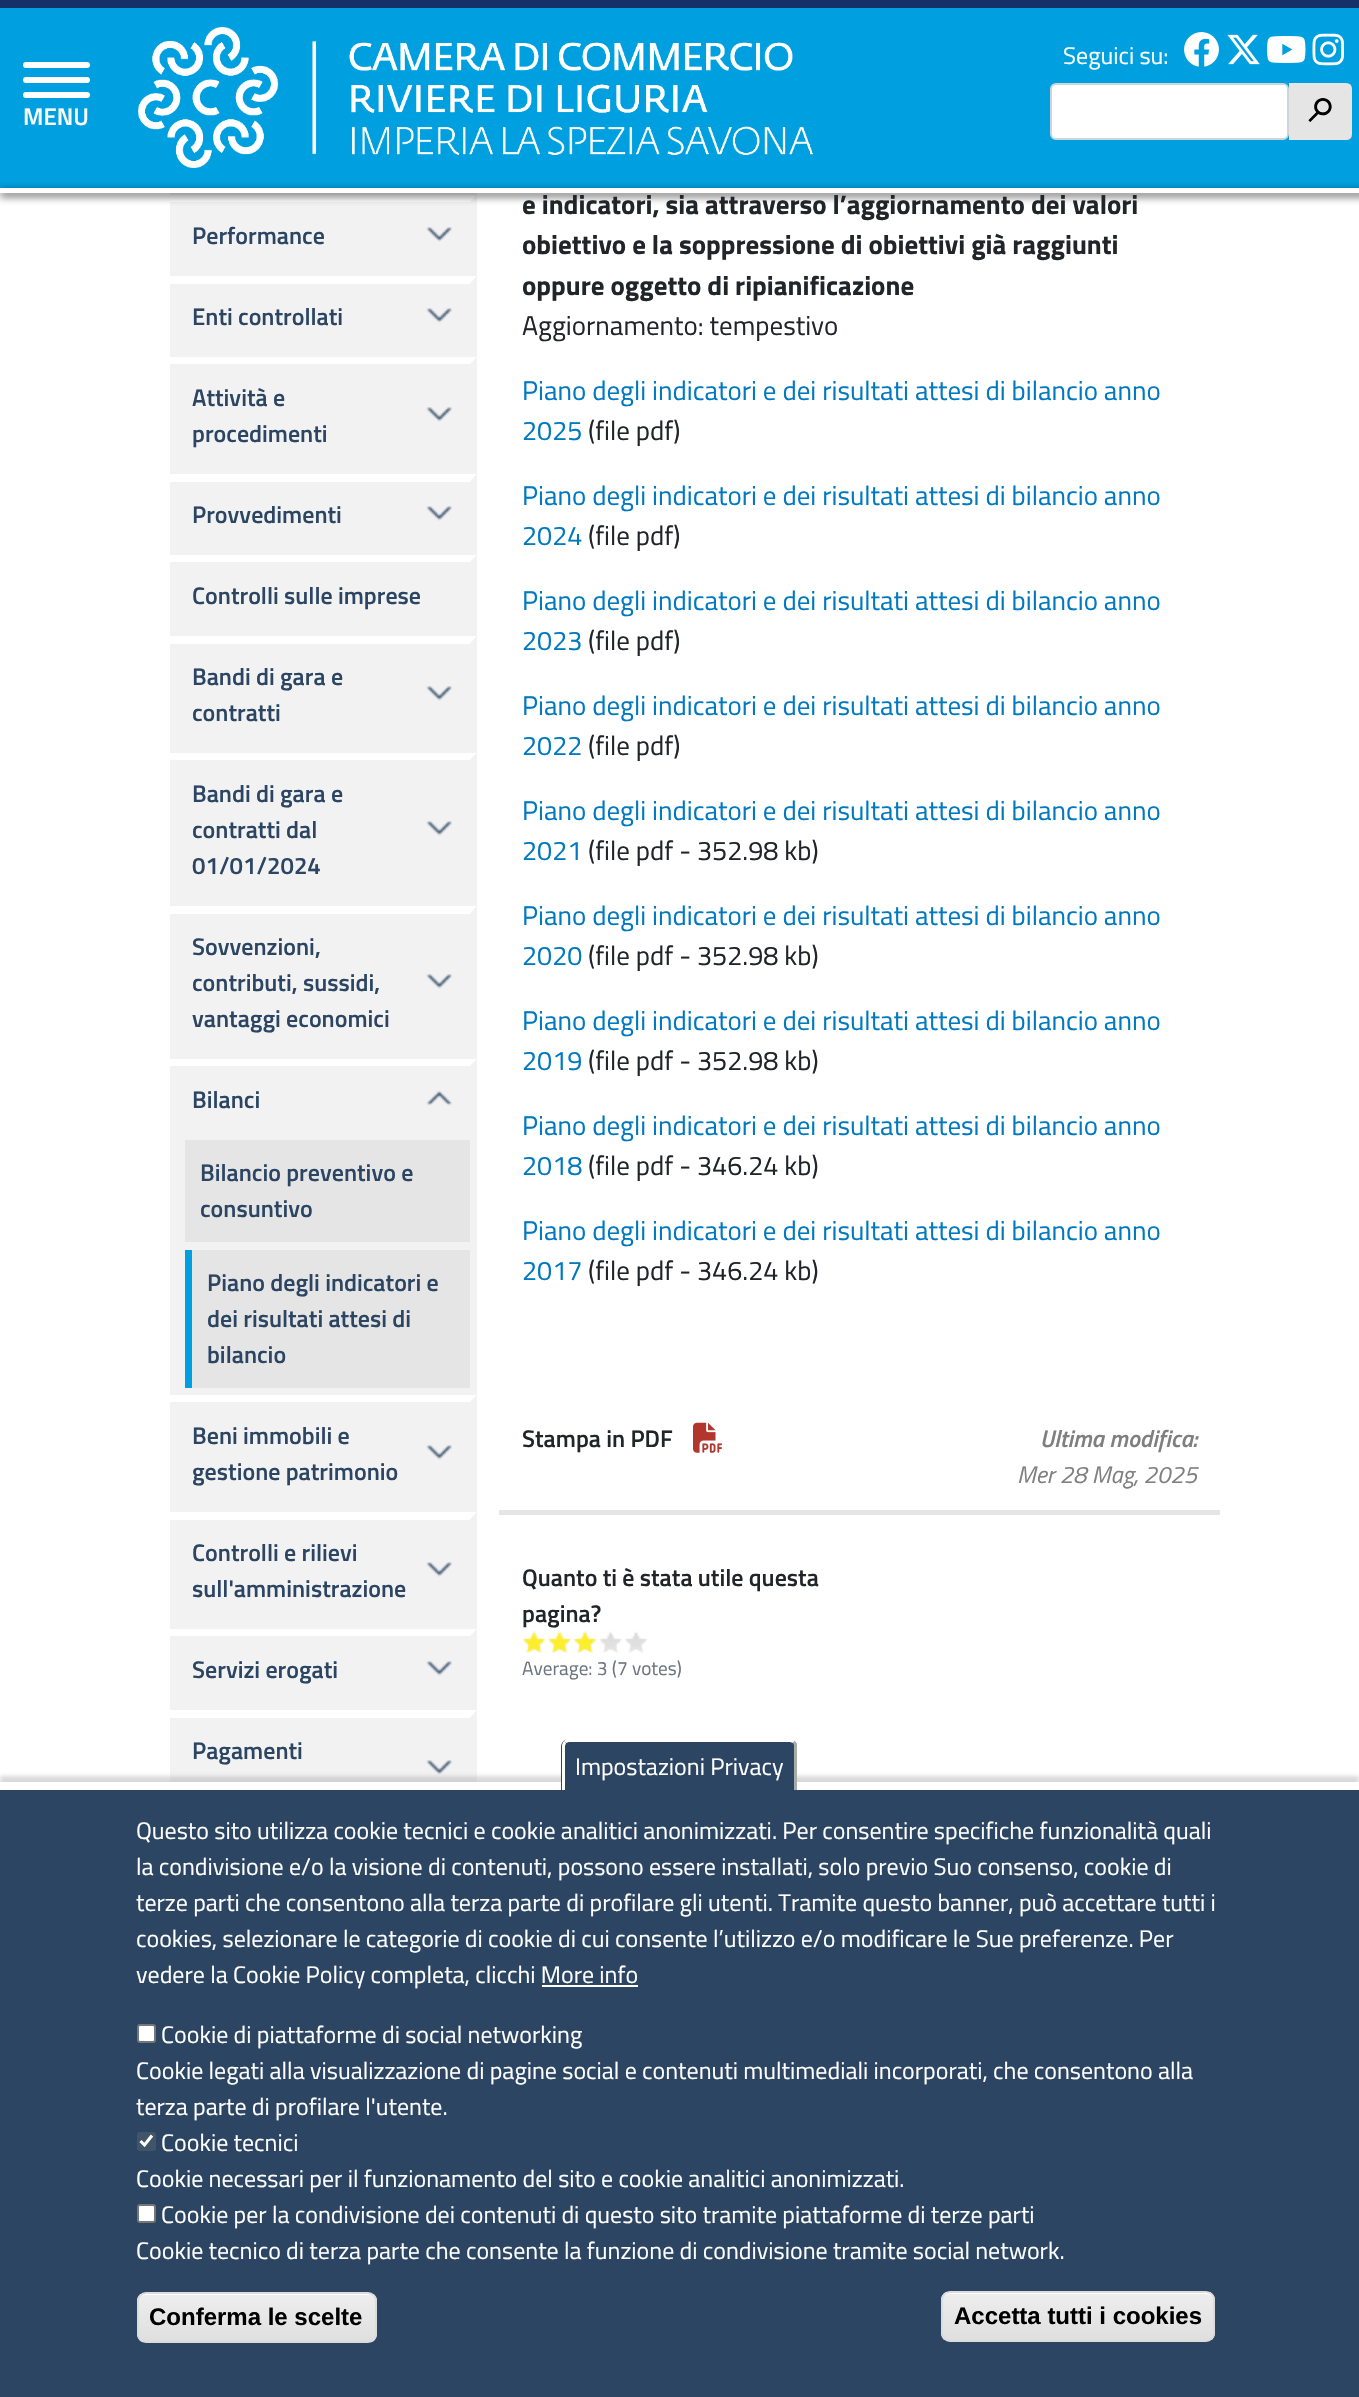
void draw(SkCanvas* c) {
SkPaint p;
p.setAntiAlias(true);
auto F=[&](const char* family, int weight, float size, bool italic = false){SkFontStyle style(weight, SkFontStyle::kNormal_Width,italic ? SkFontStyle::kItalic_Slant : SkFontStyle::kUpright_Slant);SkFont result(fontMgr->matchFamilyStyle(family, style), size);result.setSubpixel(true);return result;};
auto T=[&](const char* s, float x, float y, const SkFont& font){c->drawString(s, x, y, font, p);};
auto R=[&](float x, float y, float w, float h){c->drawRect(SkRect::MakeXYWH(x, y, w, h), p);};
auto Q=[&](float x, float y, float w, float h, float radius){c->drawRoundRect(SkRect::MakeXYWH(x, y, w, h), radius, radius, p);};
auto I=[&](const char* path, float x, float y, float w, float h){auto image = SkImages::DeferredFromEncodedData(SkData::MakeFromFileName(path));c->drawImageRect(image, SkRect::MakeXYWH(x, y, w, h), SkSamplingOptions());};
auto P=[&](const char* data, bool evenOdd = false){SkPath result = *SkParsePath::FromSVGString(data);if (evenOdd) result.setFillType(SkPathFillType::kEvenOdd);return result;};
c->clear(0xffffffff);
p.setColor(0xfff2f2f2);
R(170,193,307,1589);
c->drawPath(P("M477 114v81h-7v-73z"),p);
p.setColor(0xff009fdf);
R(0,8,1359,180);
p.setColor(0xff143168);
R(0,0,1359,8);
p.setColor(0xffffffff);
Q(23,92,67,6,3);
Q(23,62,67,6,3);
Q(23,77,67,6,3);
auto f1 = F("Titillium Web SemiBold",600,24);
T("MENU",23,125,f1);
I("1.png",138,27,675,141);
auto f2 = F("Titillium Web",400,24);
T("Seguici su:",1063,64,f2);
I("2.png",1184,32,35,35);
I("3.png",1227,34,33,31);
I("4.png",1267,36,39,27);
I("5.png",1312,33,32,33);
c->drawRoundRect(SkRect::MakeXYWH(1051,84,237,55),5,5,p);
p.setStroke(true);
p.setStrokeWidth(2);
p.setColor(0xffced4da);
c->drawRoundRect(SkRect::MakeXYWH(1051,84,237,55),5,5,p);
p.setStroke(false);
p.setColor(0xffe5e5e5);
c->drawPath(P("M1290 84h56c3 0 5 2 5 5v45c0 3-2 5-5 5h-56z"),p);
p.setStroke(true);
c->drawPath(P("M1290 84h56c3 0 5 2 5 5v45c0 3-2 5-5 5h-56z"),p);
auto f3 = F("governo",400,24);
p.setStroke(false);
p.setColor(0xff000000);
T("h",1308,122,f3);
p.setColor(0xffffffff);
c->drawPath(P("M170 195h307l-7 7h-300z"),p);
p.setColor(0xfff2f2f2);
c->drawPath(P("M477 195v81h-7v-74z"),p);
p.setColor(0xbf000000);
p.setMaskFilter(SkMaskFilter::MakeBlur(kNormal_SkBlurStyle, 4));
c->drawRect(SkRect::MakeXYWH(0,191,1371,5),p);
p.setMaskFilter(nullptr);
p.setColor(0xffffffff);
R(0,188,1359,5);
I("6.png",426,227,26,15);
p.setColor(0xff2b4562);
T("Performance",192,244,f1);
p.setColor(0xffffffff);
c->drawPath(P("M170 276h307l-7 8h-300z"),p);
p.setColor(0xfff2f2f2);
c->drawPath(P("M477 276v81h-7v-73z"),p);
I("6.png",426,308,26,15);
p.setColor(0xff2b4562);
T("Enti controllati",192,325,f1);
p.setColor(0xffffffff);
c->drawPath(P("M170 357h307l-7 7h-300z"),p);
p.setColor(0xfff2f2f2);
c->drawPath(P("M477 357v117h-7v-110z"),p);
I("6.png",426,407,26,15);
p.setColor(0xff2b4562);
T("Attività e",192,406,f1);
T("procedimenti",192,442,f1);
p.setColor(0xffffffff);
c->drawPath(P("M170 474h307l-7 8h-300z"),p);
p.setColor(0xfff2f2f2);
c->drawPath(P("M477 474v81h-7v-73z"),p);
I("6.png",426,506,26,15);
p.setColor(0xff2b4562);
T("Provvedimenti",192,523,f1);
p.setColor(0xffffffff);
c->drawPath(P("M170 555h307l-7 7h-300z"),p);
p.setColor(0xfff2f2f2);
c->drawPath(P("M477 555v81h-7v-74z"),p);
p.setColor(0xff2b4562);
T("Controlli sulle imprese",192,604,f1);
p.setColor(0xffffffff);
c->drawPath(P("M170 636h307l-7 8h-300z"),p);
p.setColor(0xfff2f2f2);
c->drawPath(P("M477 636v117h-7v-109z"),p);
I("6.png",426,686,26,15);
p.setColor(0xff2b4562);
T("Bandi di gara e",192,685,f1);
T("contratti",192,721,f1);
p.setColor(0xffffffff);
c->drawPath(P("M170 753h307l-7 7h-300z"),p);
p.setColor(0xfff2f2f2);
c->drawPath(P("M477 753v153h-7v-146z"),p);
I("6.png",426,821,26,15);
p.setColor(0xff2b4562);
T("Bandi di gara e",192,802,f1);
T("contratti dal",192,838,f1);
T("01/01/2024",192,874,f1);
p.setColor(0xffffffff);
c->drawPath(P("M170 906h307l-7 8h-300z"),p);
p.setColor(0xfff2f2f2);
c->drawPath(P("M477 906v153h-7v-145z"),p);
I("6.png",426,974,26,15);
p.setColor(0xff2b4562);
T("Sovvenzioni,",192,955,f1);
T("contributi, sussidi,",192,991,f1);
T("vantaggi economici",192,1027,f1);
p.setColor(0xffffffff);
c->drawPath(P("M170 1059h307l-7 7h-300z"),p);
p.setColor(0xfff2f2f2);
c->drawPath(P("M477 1059v336h-7v-329z"),p);
I("7.png",426,1091,26,15);
p.setColor(0xff2b4562);
T("Bilanci",192,1108,f1);
p.setColor(0xffe5e5e5);
R(185,1140,285,102);
p.setColor(0xff2b4562);
T("Bilancio preventivo e",200,1181,f1);
T("consuntivo",200,1217,f1);
p.setColor(0xffe5e5e5);
R(192,1250,278,138);
p.setColor(0xff009fdf);
R(185,1250,7,138);
p.setColor(0xff2b4562);
T("Piano degli indicatori e",207,1291,f1);
T("dei risultati attesi di",207,1327,f1);
T("bilancio",207,1363,f1);
p.setColor(0xffffffff);
c->drawPath(P("M170 1395h307l-7 7h-300z"),p);
p.setColor(0xfff2f2f2);
c->drawPath(P("M477 1395v117h-7v-110z"),p);
I("6.png",426,1445,26,15);
p.setColor(0xff2b4562);
T("Beni immobili e",192,1444,f1);
T("gestione patrimonio",192,1480,f1);
p.setColor(0xffffffff);
c->drawPath(P("M170 1512h307l-7 8h-300z"),p);
p.setColor(0xfff2f2f2);
c->drawPath(P("M477 1512v117h-7v-109z"),p);
I("6.png",426,1562,26,15);
p.setColor(0xff2b4562);
T("Controlli e rilievi",192,1561,f1);
T("sull'amministrazione",192,1597,f1);
p.setColor(0xffffffff);
c->drawPath(P("M170 1629h307l-7 7h-300z"),p);
p.setColor(0xfff2f2f2);
c->drawPath(P("M477 1629v81h-7v-74z"),p);
I("6.png",426,1661,26,15);
p.setColor(0xff2b4562);
T("Servizi erogati",192,1678,f1);
p.setColor(0xffffffff);
c->drawPath(P("M170 1710h307l-7 8h-300z"),p);
p.setColor(0xfff2f2f2);
c->drawPath(P("M477 1710v117h-7v-109z"),p);
I("6.png",426,1760,26,15);
p.setColor(0xff2b4562);
T("Pagamenti",192,1759,f1);
auto f4 = F("Titillium Web",700,27);
p.setColor(0xff212529);
T("e indicatori, sia attraverso l’aggiornamento dei valori",522,214,f4);
T("obiettivo e la soppressione di obiettivi già raggiunti",522,254,f4);
T("oppure oggetto di ripianificazione",522,295,f4);
auto f5 = F("Titillium Web",400,27);
T("Aggiornamento: tempestivo",522,335,f5);
p.setColor(0xff0079c0);
T("Piano degli indicatori e dei risultati attesi di bilancio anno",522,400,f5);
T("2025",522,440,f5);
p.setColor(0xff212529);
T("(file pdf)",588,440,f5);
p.setColor(0xff0079c0);
T("Piano degli indicatori e dei risultati attesi di bilancio anno",522,505,f5);
T("2024",522,545,f5);
p.setColor(0xff212529);
T("(file pdf)",588,545,f5);
p.setColor(0xff0079c0);
T("Piano degli indicatori e dei risultati attesi di bilancio anno",522,610,f5);
T("2023",522,650,f5);
p.setColor(0xff212529);
T("(file pdf)",588,650,f5);
p.setColor(0xff0079c0);
T("Piano degli indicatori e dei risultati attesi di bilancio anno",522,715,f5);
T("2022",522,755,f5);
p.setColor(0xff212529);
T("(file pdf)",588,755,f5);
p.setColor(0xff0079c0);
T("Piano degli indicatori e dei risultati attesi di bilancio anno",522,820,f5);
T("2021",522,860,f5);
p.setColor(0xff212529);
T("(file pdf - 352.98 kb)",588,860,f5);
p.setColor(0xff0079c0);
T("Piano degli indicatori e dei risultati attesi di bilancio anno",522,925,f5);
T("2020",522,965,f5);
p.setColor(0xff212529);
T("(file pdf - 352.98 kb)",588,965,f5);
p.setColor(0xff0079c0);
T("Piano degli indicatori e dei risultati attesi di bilancio anno",522,1030,f5);
T("2019",522,1070,f5);
p.setColor(0xff212529);
T("(file pdf - 352.98 kb)",588,1070,f5);
p.setColor(0xff0079c0);
T("Piano degli indicatori e dei risultati attesi di bilancio anno",522,1135,f5);
T("2018",522,1175,f5);
p.setColor(0xff212529);
T("(file pdf - 346.24 kb)",588,1175,f5);
p.setColor(0xff0079c0);
T("Piano degli indicatori e dei risultati attesi di bilancio anno",522,1240,f5);
T("2017",522,1280,f5);
p.setColor(0xff212529);
T("(file pdf - 346.24 kb)",588,1280,f5);
T("Stampa in PDF",522,1447,f1);
I("8.png",693,1422,29,31);
auto f6 = F("Titillium Web SemiBold",600,24,true);
p.setColor(0xff7f7f7f);
T("Ultima modifica:",1040,1447,f6);
auto f7 = F("Titillium Web",400,24,true);
T("Mer 28 Mag, 2025",1017,1483,f7);
p.setColor(0xffe5e5e5);
R(499,1510,721,5);
p.setColor(0xff212529);
T("Quanto ti è stata utile questa",522,1586,f1);
T("pagina?",522,1622,f1);
I("9.png",523,1631,23,22);
I("10.png",522,1631,24,22);
I("11.png",548,1631,23,22);
I("12.png",548,1631,24,22);
I("13.png",574,1631,23,22);
I("14.png",573,1631,24,22);
I("11.png",599,1631,23,22);
I("15.png",601,1634,19,14);
I("16.png",625,1631,23,22);
I("17.png",626,1633,20,7);
auto f8 = F("Titillium Web",400,19.25);
p.setColor(0xff6c757d);
T("Average: 3 (7 votes)",522,1675,f8);
p.setColor(0x80b4b4b4);
p.setMaskFilter(SkMaskFilter::MakeBlur(kNormal_SkBlurStyle, 2));
c->drawRect(SkRect::MakeXYWH(0,1776,1359,615),p);
p.setMaskFilter(nullptr);
p.setColor(0xff2b4562);
R(0,1790,1359,607);
p.setColor(0xffffffff);
R(0,1782,1359,8);
p.setColor(0xff2b4562);
c->drawPath(P("M569 1739h220c4.5 0 8 3.5 8 8v43h-236v-43c0-4.5 3.5-8 8-8z"),p);
p.setColor(0xffffffff);
c->drawPath(P("M569 1742l-3 1l-2-2l3-3h225l3 3l-2 2l-3-1z"),p);
p.setColor(0xffaaaaaa);
c->drawPath(P("M794 1790v-45l-1-2l2-2c1 1 2 3 2 5v44z"),p);
p.setColor(0xffffffff);
c->drawPath(P("M562 1790v-44c0-2 1-4 2-5l2 2c0 1-1 2-1 3v44z"),p);
T("Impostazioni Privacy",575,1775,f2);
T("Questo sito utilizza cookie tecnici e cookie analitici anonimizzati. Per consentire specifiche funzionalità quali",136,1839,f2);
T("la condivisione e/o la visione di contenuti, possono essere installati, solo previo Suo consenso, cookie di",136,1875,f2);
T("terze parti che consentono alla terza parte di profilare gli utenti. Tramite questo banner, può accettare tutti i",136,1911,f2);
T("cookies, selezionare le categorie di cookie di cui consente l’utilizzo e/o modificare le Sue preferenze. Per",136,1947,f2);
T("vedere la Cookie Policy completa, clicchi More info",136,1983,f2);
R(542,1985,96,2);
c->drawRoundRect(SkRect::MakeXYWH(138,2025,17,17),2,2,p);
p.setStroke(true);
p.setColor(0xff767676);
c->drawRoundRect(SkRect::MakeXYWH(138,2025,17,17),2,2,p);
p.setStroke(false);
p.setColor(0xffffffff);
T("Cookie di piattaforme di social networking",161,2043,f2);
T("Cookie legati alla visualizzazione di pagine social e contenuti multimediali incorporati, che consentono alla",136,2079,f2);
T("terza parte di profilare l'utente.",136,2115,f2);
p.setColor(0xff425468);
Q(137,2132,19,19,3);
p.setStroke(true);
p.setStrokeWidth(3.1);
p.setColor(0xffffffff);
c->drawPath(P("M140.5 2141l4 4l7.5-9.5"),p);
p.setStroke(false);
T("Cookie tecnici",161,2151,f2);
T("Cookie necessari per il funzionamento del sito e cookie analitici anonimizzati.",136,2187,f2);
c->drawRoundRect(SkRect::MakeXYWH(138,2205,17,17),2,2,p);
p.setStroke(true);
p.setStrokeWidth(2);
p.setColor(0xff767676);
c->drawRoundRect(SkRect::MakeXYWH(138,2205,17,17),2,2,p);
p.setStroke(false);
p.setColor(0xffffffff);
T("Cookie per la condivisione dei contenuti di questo sito tramite piattaforme di terze parti",161,2223,f2);
T("Cookie tecnico di terza parte che consente la funzione di condivisione tramite social network.",136,2259,f2);
c->save();
c->clipPath(P("M146 2292h222c5 0 9 4 9 9v33c0 5-4 9-9 9h-222c-5 0-9-4-9-9v-33c0-5 4-9 9-9z"),true);
{
const SkColor colors[] = {0xffededed,0xffdfdfdf};
const float stops[] = {.05,1};
const SkPoint ends[] = {{257,2294}, {257,2342}};
p.setShader(SkGradientShader::MakeLinear(ends, colors, stops, 2, SkTileMode::kClamp));
p.setAlpha(255);
}
R(137,2294,240,48);
c->restore();
p.setShader(nullptr);
p.setColor(0xffffffff);
c->drawPath(P("M146 2295h222c4 0 7 3 7 7c0-4-4-8-8-8h-221c-4 0-8 4-8 8c0-4 3-7 8-7z"),p);
p.setStroke(true);
p.setColor(0xffdcdcdc);
c->drawRoundRect(SkRect::MakeXYWH(138,2293,238,49),8,8,p);
auto f9 = F("Liberation Sans",700,24);
p.setStroke(false);
p.setColor(0xff000000);
T("Conferma le scelte",149,2325,f9);
c->save();
c->clipPath(P("M950 2291h256c5 0 9 4 9 9v33c0 5-4 9-9 9h-256c-5 0-9-4-9-9v-33c0-5 4-9 9-9z"),true);
{
const SkColor colors[] = {0xffededed,0xffdfdfdf};
const float stops[] = {.05,1};
const SkPoint ends[] = {{1078,2292}, {1078,2340}};
p.setShader(SkGradientShader::MakeLinear(ends, colors, stops, 2, SkTileMode::kClamp));
p.setAlpha(255);
}
R(941,2292,274,48);
c->restore();
p.setShader(nullptr);
p.setColor(0xffffffff);
c->drawPath(P("M950 2294h256c4 0 8 3 8 7v-1c0-4-4-8-8-8h-256c-4 0-8 4-8 8v1c0-4 3-7 8-7z"),p);
p.setStroke(true);
p.setColor(0xffdcdcdc);
c->drawRoundRect(SkRect::MakeXYWH(942,2292,272,49),8,8,p);
p.setStroke(false);
p.setColor(0xff000000);
T("Accetta tutti i cookies",954,2324,f9);
}
